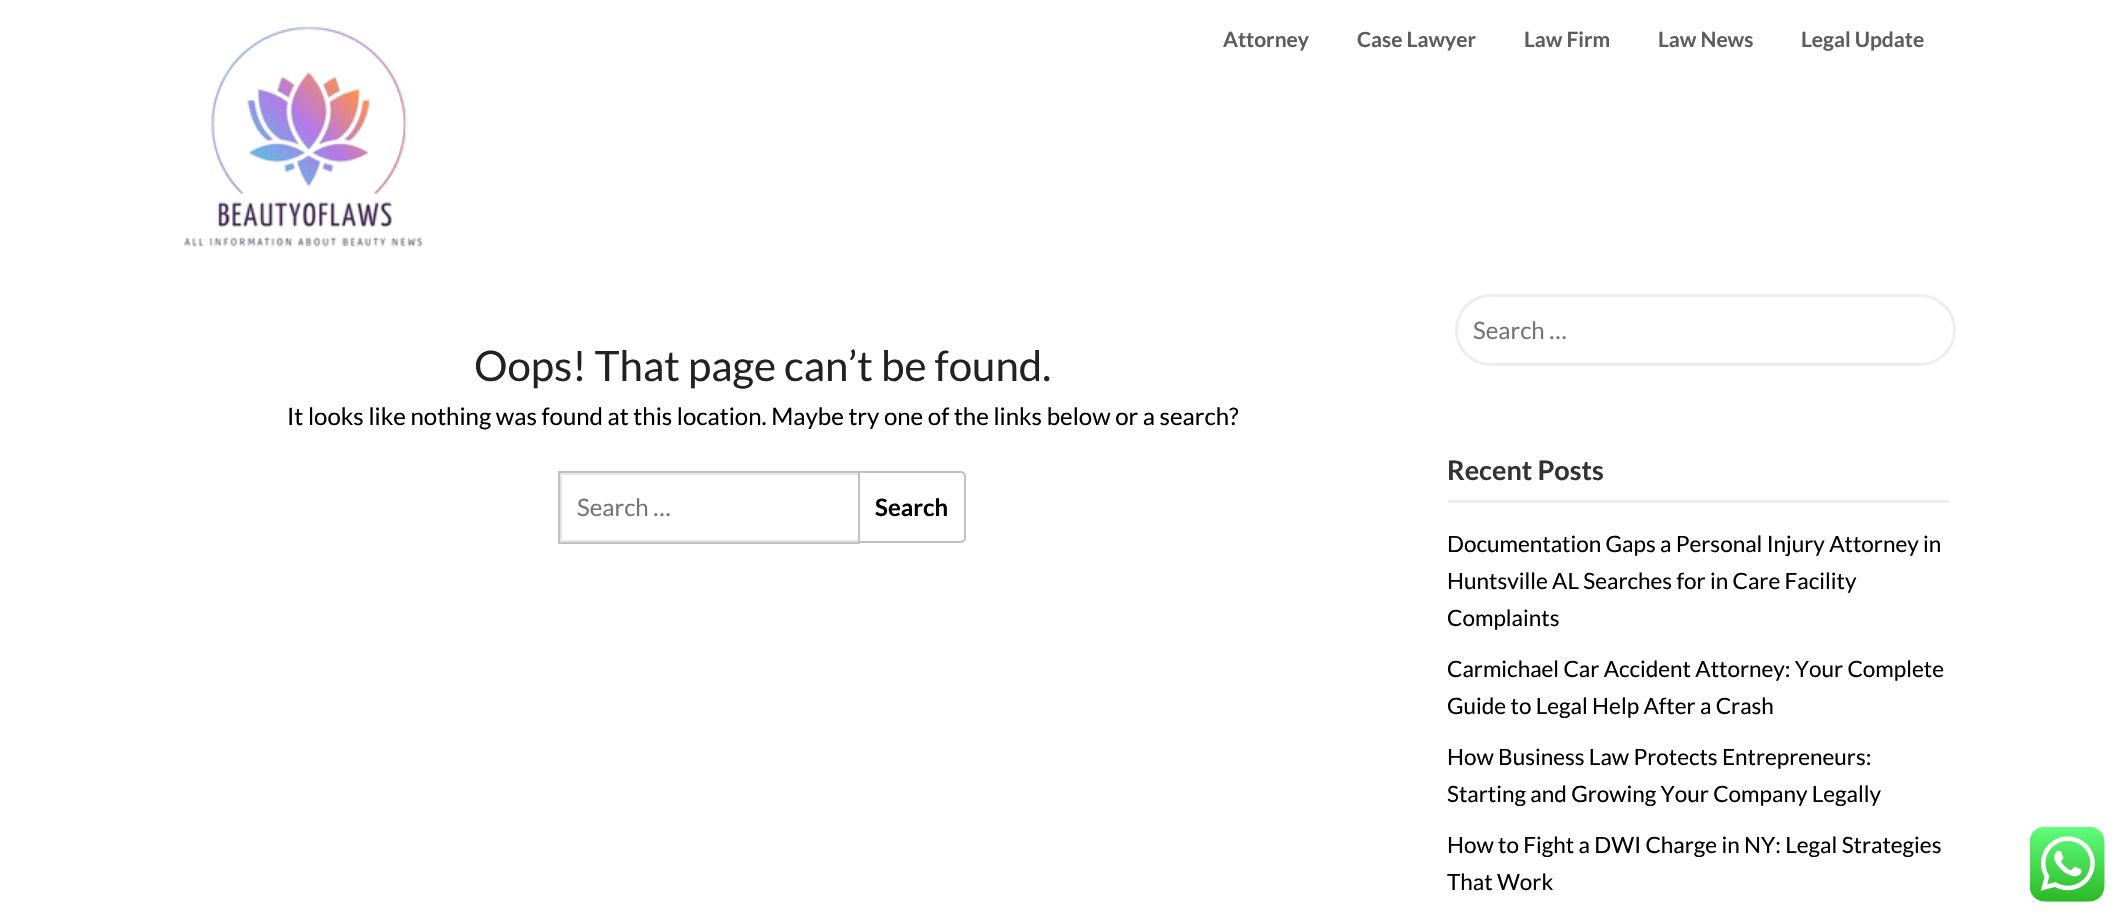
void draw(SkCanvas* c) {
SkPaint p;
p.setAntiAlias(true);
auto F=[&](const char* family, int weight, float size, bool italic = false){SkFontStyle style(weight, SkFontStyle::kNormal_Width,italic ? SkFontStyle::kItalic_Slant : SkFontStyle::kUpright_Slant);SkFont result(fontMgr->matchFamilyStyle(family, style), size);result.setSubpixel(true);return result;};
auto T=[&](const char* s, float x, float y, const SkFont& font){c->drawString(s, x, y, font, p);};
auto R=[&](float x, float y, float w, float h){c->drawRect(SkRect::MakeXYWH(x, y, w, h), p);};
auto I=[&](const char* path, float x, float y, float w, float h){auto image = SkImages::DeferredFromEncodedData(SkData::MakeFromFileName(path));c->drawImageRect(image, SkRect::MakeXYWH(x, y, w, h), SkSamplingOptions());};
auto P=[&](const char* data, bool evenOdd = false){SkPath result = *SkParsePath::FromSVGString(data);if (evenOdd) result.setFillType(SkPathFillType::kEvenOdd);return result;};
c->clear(0xffffffff);
I("1.png",184,26,240,221);
auto f1 = F("Lato",700,21);
p.setColor(0xff5d5d5d);
T("Attorney",1223,47,f1);
T("Case Lawyer",1357,47,f1);
T("Law Firm",1524,47,f1);
T("Law News",1658,47,f1);
T("Legal Update",1801,47,f1);
auto f2 = F("Lato",400,42);
p.setColor(0xff222222);
T("Oops! That page can’t be found.",474,381,f2);
auto f3 = F("Lato",400,24);
p.setColor(0xff000000);
T("It looks like nothing was found at this location. Maybe try one of the links below or a search?",287,425,f3);
p.setColor(0xffc1c1c1);
R(558,471,302,2);
R(558,542,302,2);
R(558,471,2,72);
p.setStroke(true);
p.setStrokeWidth(2);
p.setColor(0xffe5e6e9);
c->drawRect(SkRect::MakeXYWH(561,474,298,67),p);
p.setStroke(false);
p.setColor(0xff757575);
T("Search …",577,516,f3);
p.setStroke(true);
p.setColor(0xffc1c1c1);
c->drawPath(P("M859 472h102c2 0 4 2 4 4v62c0 2-2 4-4 4h-102z"),p);
auto f4 = F("Lato",700,24);
p.setStroke(false);
p.setColor(0xff000000);
T("Search",875,516,f4);
p.setStroke(true);
p.setStrokeWidth(3);
p.setColor(0xffeeeeee);
c->drawRoundRect(SkRect::MakeXYWH(1456.5,295.5,498,69),34.5,34.5,p);
p.setStroke(false);
p.setColor(0xff757575);
T("Search …",1473,339,f3);
p.setColor(0xffeeeeee);
R(1448,500,501,3);
auto f5 = F("Lato",700,27);
p.setColor(0xff333333);
T("Recent Posts",1447,480,f5);
auto f6 = F("Lato",400,22.5);
p.setColor(0xff000000);
T("Documentation Gaps a Personal Injury Attorney in",1447,552,f6);
T("Huntsville AL Searches for in Care Facility",1447,589,f6);
T("Complaints",1447,626,f6);
T("Carmichael Car Accident Attorney: Your Complete",1447,677,f6);
T("Guide to Legal Help After a Crash",1447,714,f6);
T("How Business Law Protects Entrepreneurs:",1447,765,f6);
T("Starting and Growing Your Company Legally",1447,802,f6);
T("How to Fight a DWI Charge in NY: Legal Strategies",1447,853,f6);
T("That Work",1447,890,f6);
I("2.png",2030,827,75,75);
}
